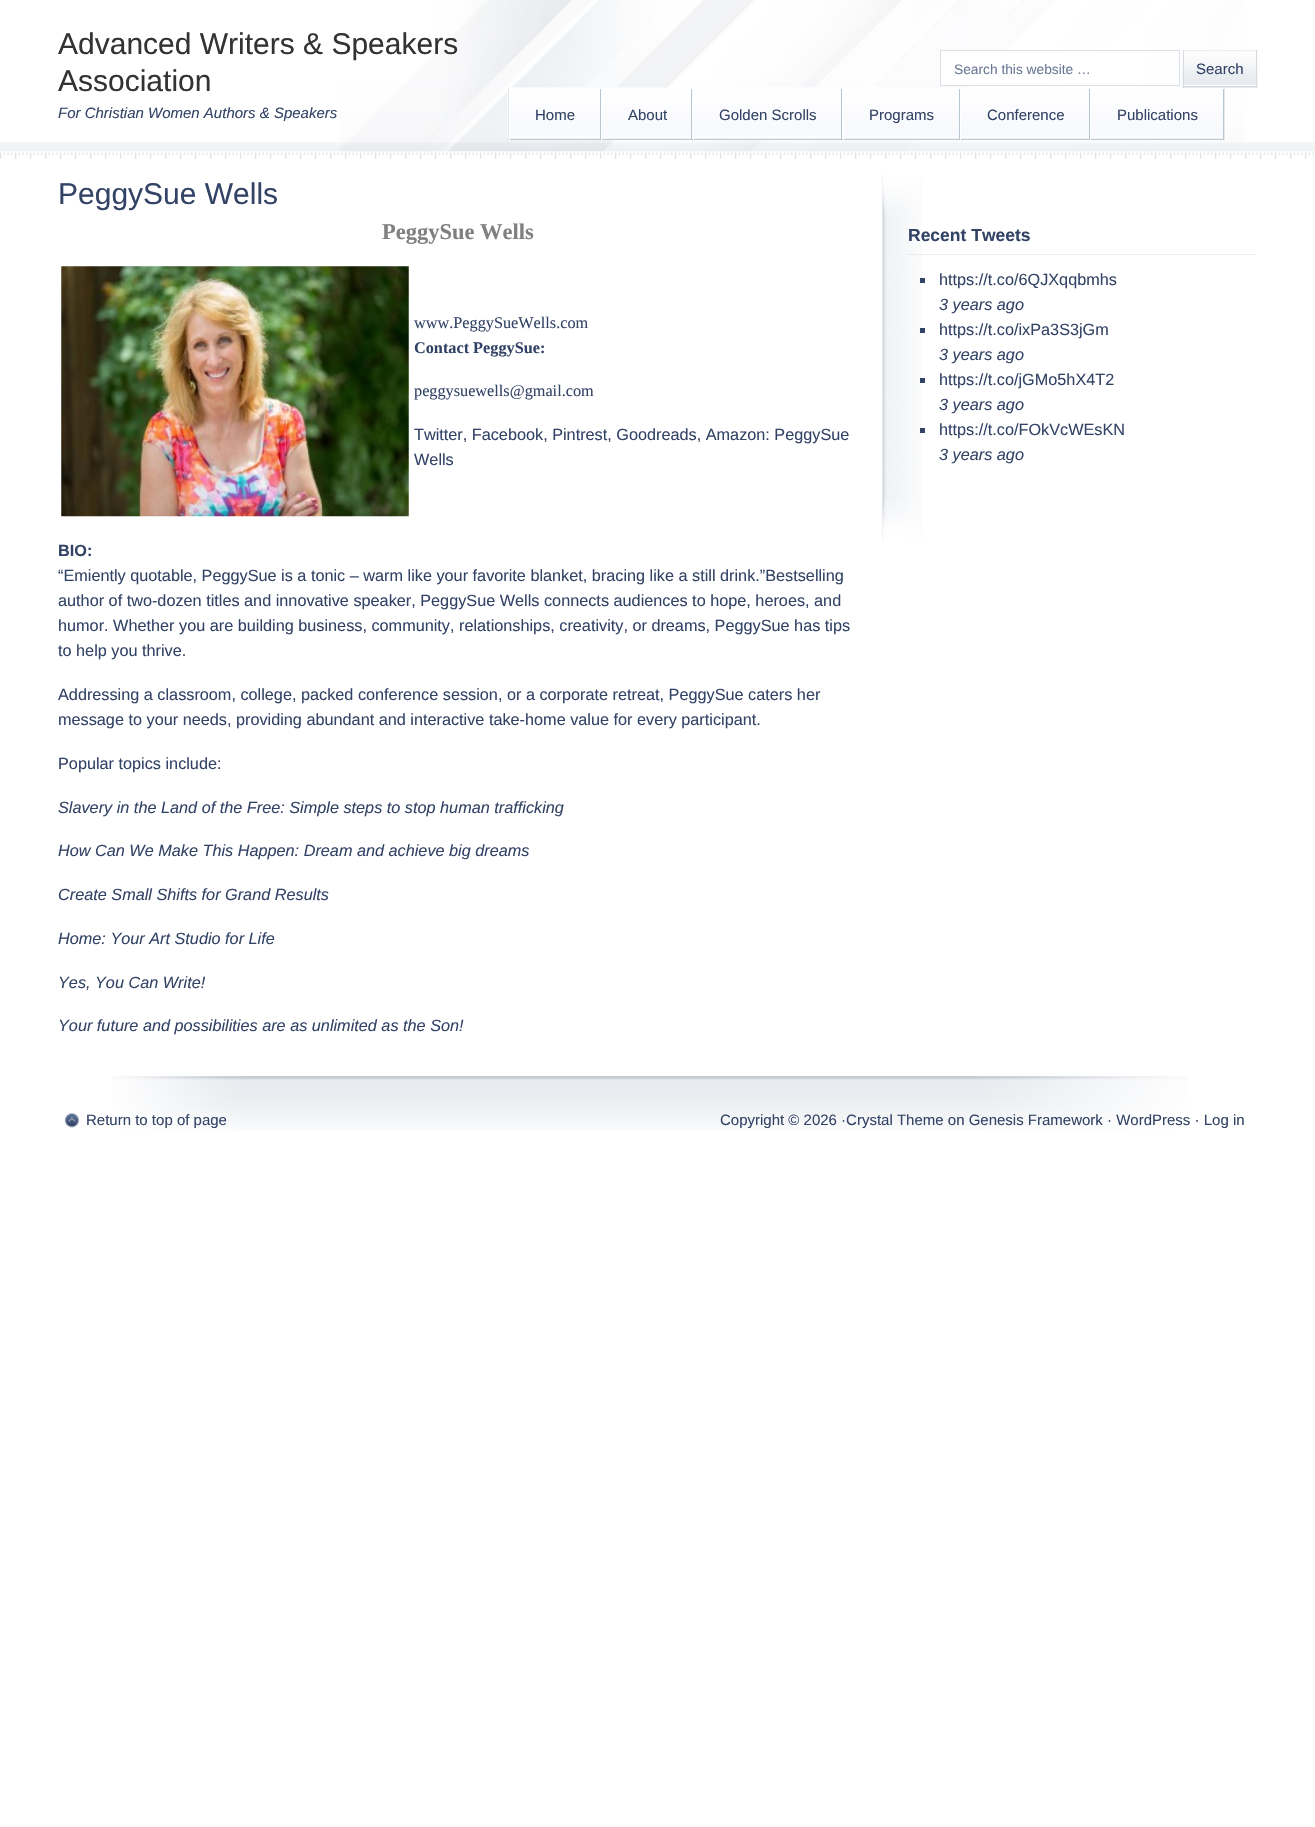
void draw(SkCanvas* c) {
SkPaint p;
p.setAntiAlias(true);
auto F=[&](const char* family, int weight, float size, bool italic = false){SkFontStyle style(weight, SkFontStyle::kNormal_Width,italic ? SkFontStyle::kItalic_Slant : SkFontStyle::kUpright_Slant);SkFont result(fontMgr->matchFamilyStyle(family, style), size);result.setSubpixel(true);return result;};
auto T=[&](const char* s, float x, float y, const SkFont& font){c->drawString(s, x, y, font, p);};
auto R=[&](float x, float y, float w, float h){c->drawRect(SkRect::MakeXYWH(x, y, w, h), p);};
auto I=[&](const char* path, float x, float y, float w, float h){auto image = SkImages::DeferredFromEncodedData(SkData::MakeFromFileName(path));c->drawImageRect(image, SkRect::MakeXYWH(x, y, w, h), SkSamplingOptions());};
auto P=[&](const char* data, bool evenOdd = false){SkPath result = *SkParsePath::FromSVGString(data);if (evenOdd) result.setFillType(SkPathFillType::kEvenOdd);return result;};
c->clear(0xffffffff);
I("1.png",0,142,1315,17);
I("2.png",339,0,905,152);
auto f1 = F("Liberation Sans",400,30);
p.setColor(0xff333333);
T("Advanced Writers & Speakers",58,54,f1);
T("Association",58,91,f1);
auto f2 = F("Liberation Sans",400,15,true);
p.setColor(0xff334366);
T("For Christian Women Authors & Speakers",58,118,f2);
p.setColor(0xffffffff);
R(941,51,208,34);
p.setStroke(true);
p.setStrokeWidth(1);
p.setColor(0xffdbdee4);
c->drawRect(SkRect::MakeXYWH(940.5,50.5,239,35),p);
auto f3 = F("Liberation Sans",400,13.75);
p.setStroke(false);
p.setColor(0xff6c7996);
T("Search this website …",954,74,f3);
I("4.png",507,87,718,53);
I("3.png",1182,50,76,38);
p.setColor(0xffd4dbe1);
R(1256,50,1,38);
R(1183,50,1,38);
auto f4 = F("Liberation Sans",400,15);
p.setColor(0xff334366);
T("Search",1196,74,f4);
p.setColor(0xffe4e9ed);
R(1224,88,1,52);
R(508,88,1,52);
p.setColor(0xffb8c6d1);
R(600,89,1,51);
p.setColor(0xffffffff);
R(509,104,1,36);
p.setColor(0xff334366);
T("Home",535,120,f4);
p.setColor(0xffb8c6d1);
R(691,89,1,51);
p.setColor(0xffffffff);
R(601,104,1,36);
p.setColor(0xff334366);
T("About",628,120,f4);
p.setColor(0xffb8c6d1);
R(841,89,1,51);
p.setColor(0xffffffff);
R(693,104,1,36);
p.setColor(0xff334366);
T("Golden Scrolls",719,120,f4);
p.setColor(0xffb8c6d1);
R(959,89,1,51);
p.setColor(0xffffffff);
R(843,104,1,36);
p.setColor(0xff334366);
T("Programs",869,120,f4);
p.setColor(0xffb8c6d1);
R(1089,89,1,51);
p.setColor(0xffffffff);
R(960,104,1,36);
p.setColor(0xff334366);
T("Conference",987,120,f4);
p.setColor(0xffb8c6d1);
R(1223,89,1,51);
p.setColor(0xffffffff);
R(1090,104,1,36);
p.setColor(0xff334366);
T("Publications",1117,120,f4);
T("PeggySue Wells",58,204,f1);
auto f5 = F("Liberation Serif",700,22.5);
p.setColor(0xff808080);
T("PeggySue Wells",382,239,f5);
I("5.png",61,266,348,251);
auto f6 = F("Liberation Serif",400,16.25);
p.setColor(0xff334366);
T("www.PeggySueWells.com",414,328,f6);
auto f7 = F("Liberation Serif",700,16.25);
T("Contact PeggySue:",414,353,f7);
T("peggysuewells@gmail.com",414,396,f6);
auto f8 = F("Liberation Sans",400,16.25);
T("Twitter, Facebook, Pintrest, Goodreads, Amazon: PeggySue",414,440,f8);
T("Wells",414,465,f8);
auto f9 = F("Liberation Sans",700,16.25);
T("BIO:",58,556,f9);
T("“Emiently quotable, PeggySue is a tonic – warm like your favorite blanket, bracing like a still drink.”Bestselling",58,581,f8);
T("author of two-dozen titles and innovative speaker, PeggySue Wells connects audiences to hope, heroes, and",58,606,f8);
T("humor. Whether you are building business, community, relationships, creativity, or dreams, PeggySue has tips",58,631,f8);
T("to help you thrive.",58,656,f8);
T("Addressing a classroom, college, packed conference session, or a corporate retreat, PeggySue caters her",58,700,f8);
T("message to your needs, providing abundant and interactive take-home value for every participant.",58,725,f8);
T("Popular topics include:",58,769,f8);
auto f10 = F("Liberation Sans",400,16.25,true);
T("Slavery in the Land of the Free: Simple steps to stop human trafficking",58,813,f10);
T("How Can We Make This Happen: Dream and achieve big dreams",58,856,f10);
T("Create Small Shifts for Grand Results",58,900,f10);
T("Home: Your Art Studio for Life",58,944,f10);
T("Yes, You Can Write!",58,988,f10);
T("Your future and possibilities are as unlimited as the Son!",58,1031,f10);
I("6.png",882,175,40,365);
I("7.png",882,175,39,41);
p.setStroke(true);
p.setStrokeWidth(1.2);
p.setColor(0xffdbdee4);
p.setPathEffect(SkDashPathEffect::Make({{1.25f,1.25f}}, 0));
c->drawPath(P("M907.5 254.5h350"),p);
p.setPathEffect(nullptr);
auto f11 = F("Liberation Sans",700,17.5);
p.setStroke(false);
p.setColor(0xff334366);
T("Recent Tweets",908,241,f11);
R(920,278,5,5);
T("https://t.co/6QJXqqbmhs",939,285,f8);
T("3 years ago",939,310,f10);
R(920,328,5,5);
T("https://t.co/ixPa3S3jGm",939,335,f8);
T("3 years ago",939,360,f10);
R(920,378,5,5);
T("https://t.co/jGMo5hX4T2",939,385,f8);
T("3 years ago",939,410,f10);
R(920,428,5,5);
T("https://t.co/FOkVcWEsKN",939,435,f8);
T("3 years ago",939,460,f10);
I("8.png",882,499,39,41);
I("9.png",112,1076,1077,55);
I("10.png",64,1112,15,16);
T("Return to top of page",86,1125,f4);
T("Copyright © 2026 ·Crystal Theme on Genesis Framework · WordPress · Log in",720,1125,f4);
}
